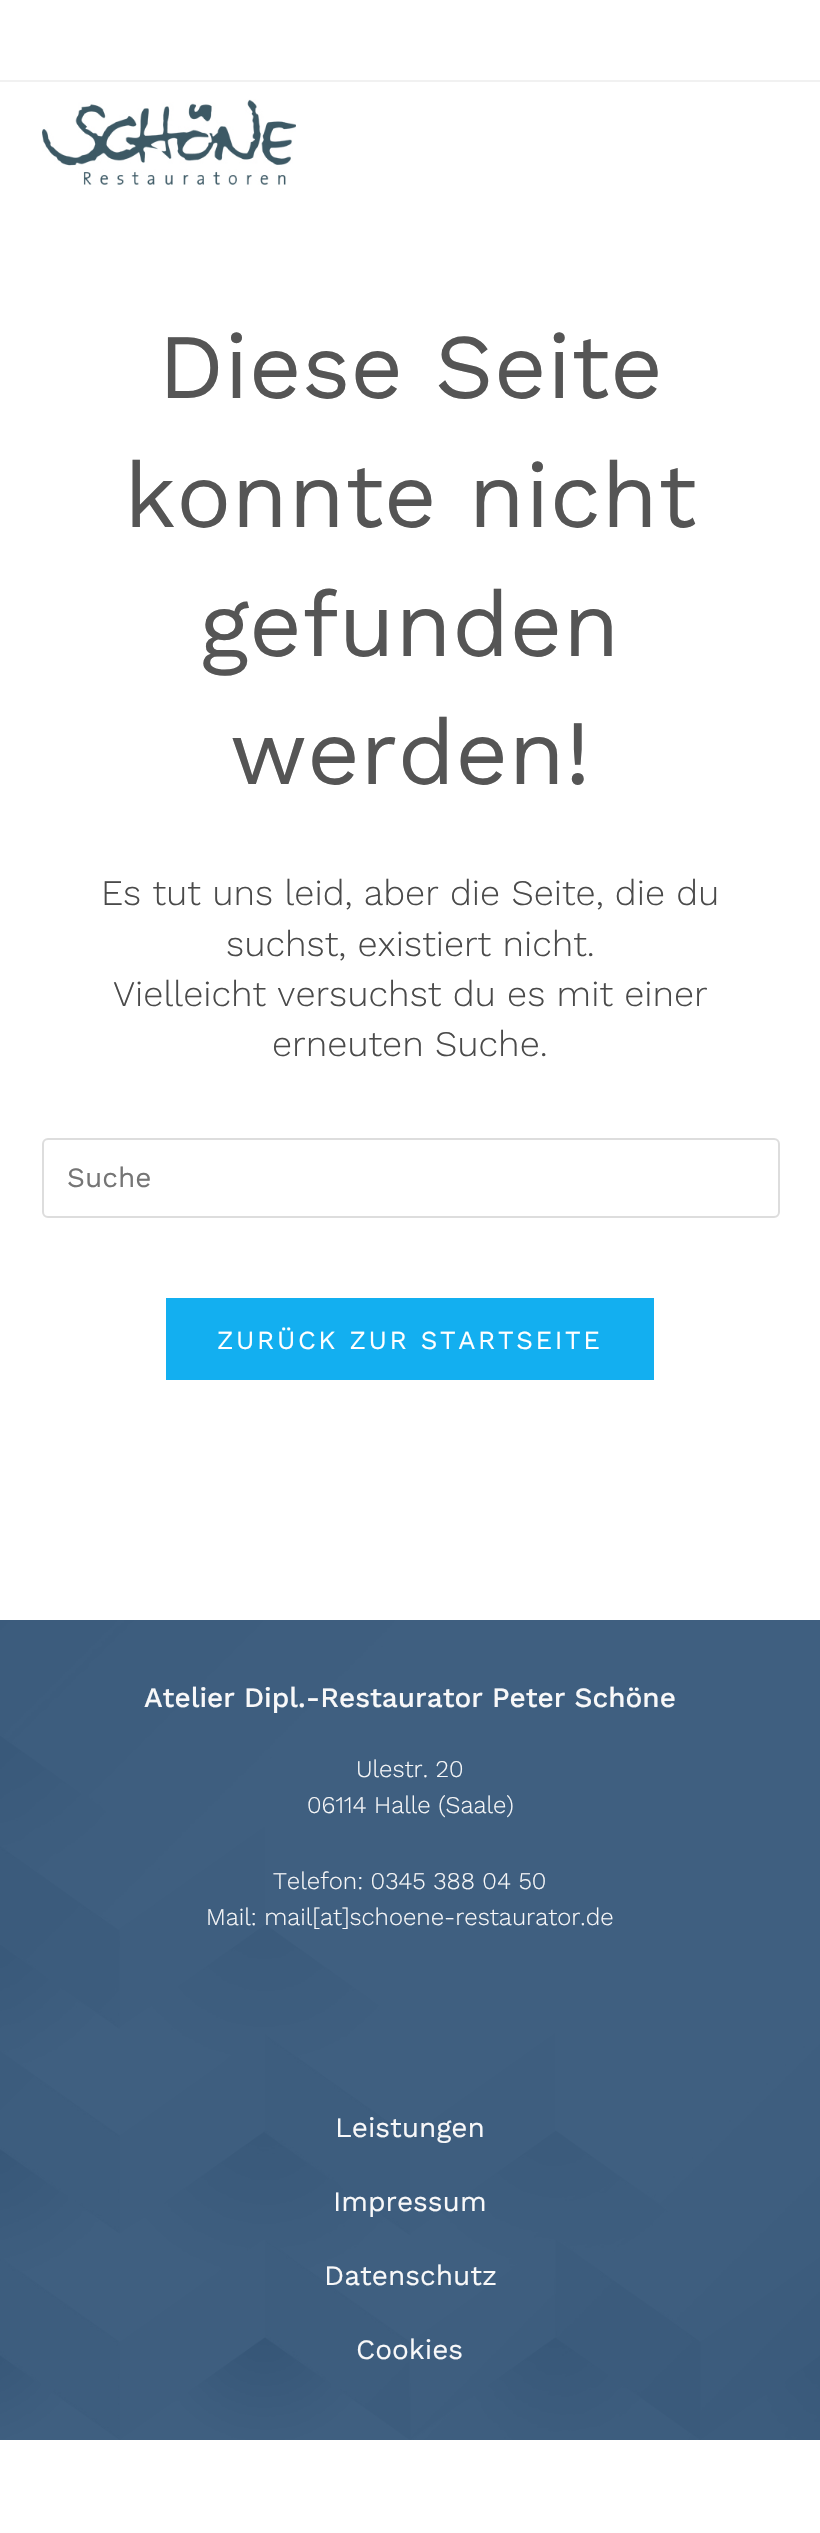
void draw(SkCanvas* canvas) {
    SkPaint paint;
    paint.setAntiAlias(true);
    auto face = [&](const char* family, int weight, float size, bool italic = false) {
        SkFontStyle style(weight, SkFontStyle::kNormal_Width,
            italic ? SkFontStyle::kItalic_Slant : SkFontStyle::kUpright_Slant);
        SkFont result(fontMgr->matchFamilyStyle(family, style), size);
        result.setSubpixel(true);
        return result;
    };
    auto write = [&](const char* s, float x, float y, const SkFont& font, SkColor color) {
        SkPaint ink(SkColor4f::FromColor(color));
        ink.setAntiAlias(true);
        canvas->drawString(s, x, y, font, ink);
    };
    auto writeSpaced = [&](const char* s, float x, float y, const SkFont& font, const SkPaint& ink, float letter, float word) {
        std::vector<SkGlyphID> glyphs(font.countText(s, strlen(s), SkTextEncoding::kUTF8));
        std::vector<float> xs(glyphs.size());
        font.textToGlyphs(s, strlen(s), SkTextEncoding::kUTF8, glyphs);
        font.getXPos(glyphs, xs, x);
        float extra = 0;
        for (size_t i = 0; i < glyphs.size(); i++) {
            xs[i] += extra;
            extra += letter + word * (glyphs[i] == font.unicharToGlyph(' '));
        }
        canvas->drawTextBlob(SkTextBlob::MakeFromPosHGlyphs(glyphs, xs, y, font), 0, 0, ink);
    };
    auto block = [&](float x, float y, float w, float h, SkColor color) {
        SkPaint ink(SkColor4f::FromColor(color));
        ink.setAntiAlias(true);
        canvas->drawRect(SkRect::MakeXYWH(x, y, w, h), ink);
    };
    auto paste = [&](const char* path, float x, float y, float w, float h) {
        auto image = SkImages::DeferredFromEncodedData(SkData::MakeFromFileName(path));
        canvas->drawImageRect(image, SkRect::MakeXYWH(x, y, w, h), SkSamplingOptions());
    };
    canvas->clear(SK_ColorWHITE);
    block(0, 80, 820, 2, SkColorSetRGB(241, 241, 241));
    paste("pic1.png", 42, 99, 254, 86);
    auto kFont1 = face("Work Sans", 400, 92);
    write("Diese Seite", 158, 398, kFont1, SkColorSetRGB(85, 85, 85));
    write("konnte nicht", 124, 527, kFont1, SkColorSetRGB(85, 85, 85));
    write("gefunden", 200, 656, kFont1, SkColorSetRGB(85, 85, 85));
    write("werden!", 230, 784, kFont1, SkColorSetRGB(85, 85, 85));
    auto kFont2 = face("Work Sans", 300, 36);
    write("Es tut uns leid, aber die Seite, die du", 101, 905, kFont2, SkColorSetRGB(74, 74, 74));
    write("suchst, existiert nicht.", 226, 956, kFont2, SkColorSetRGB(74, 74, 74));
    write("Vielleicht versuchst du es mit einer", 113, 1006, kFont2, SkColorSetRGB(74, 74, 74));
    write("erneuten Suche.", 272, 1056, kFont2, SkColorSetRGB(74, 74, 74));
    paint.setStyle(SkPaint::kStroke_Style);
    paint.setStrokeWidth(2);
    paint.setColor(SkColorSetRGB(221, 221, 221));
    canvas->drawRoundRect(SkRect::MakeXYWH(43, 1139, 736, 78), 5, 5, paint);
    auto kFont3 = face("Work Sans", 400, 28);
    write("Suche", 67, 1187, kFont3, SkColorSetRGB(117, 117, 117));
    block(166, 1298, 488, 82, SkColorSetRGB(19, 175, 240));
    auto kFont4 = face("Work Sans", 400, 26);
    paint.setStyle(SkPaint::kFill_Style);
    paint.setColor(SK_ColorWHITE);
    writeSpaced("ZURÜCK ZUR STARTSEITE", 217, 1349, kFont4, paint, 2.6f, 0);
    block(0, 1620, 820, 820, SkColorSetRGB(29, 67, 105));
    paste("pic2.png", 0, 1620, 820, 820);
    auto kFont5 = face("Work Sans", 500, 28);
    write("Atelier Dipl.-Restaurator Peter Schöne", 144, 1707, kFont5, SkColorSetRGB(248, 248, 249));
    auto kFont6 = face("Work Sans", 300, 24);
    write("Ulestr. 20", 356, 1777, kFont6, SkColorSetRGB(248, 248, 249));
    write("06114 Halle (Saale)", 307, 1813, kFont6, SkColorSetRGB(248, 248, 249));
    write("Telefon: 0345 388 04 50", 273, 1889, kFont6, SkColorSetRGB(248, 248, 249));
    write("Mail: mail[at]schoene-restaurator.de", 206, 1925, kFont6, SkColorSetRGB(248, 248, 249));
    write("Leistungen", 335, 2137, kFont3, SkColorSetRGB(248, 248, 249));
    write("Impressum", 333, 2211, kFont3, SkColorSetRGB(248, 248, 249));
    write("Datenschutz", 324, 2285, kFont3, SkColorSetRGB(248, 248, 249));
    write("Cookies", 356, 2359, kFont3, SkColorSetRGB(248, 248, 249));
}
